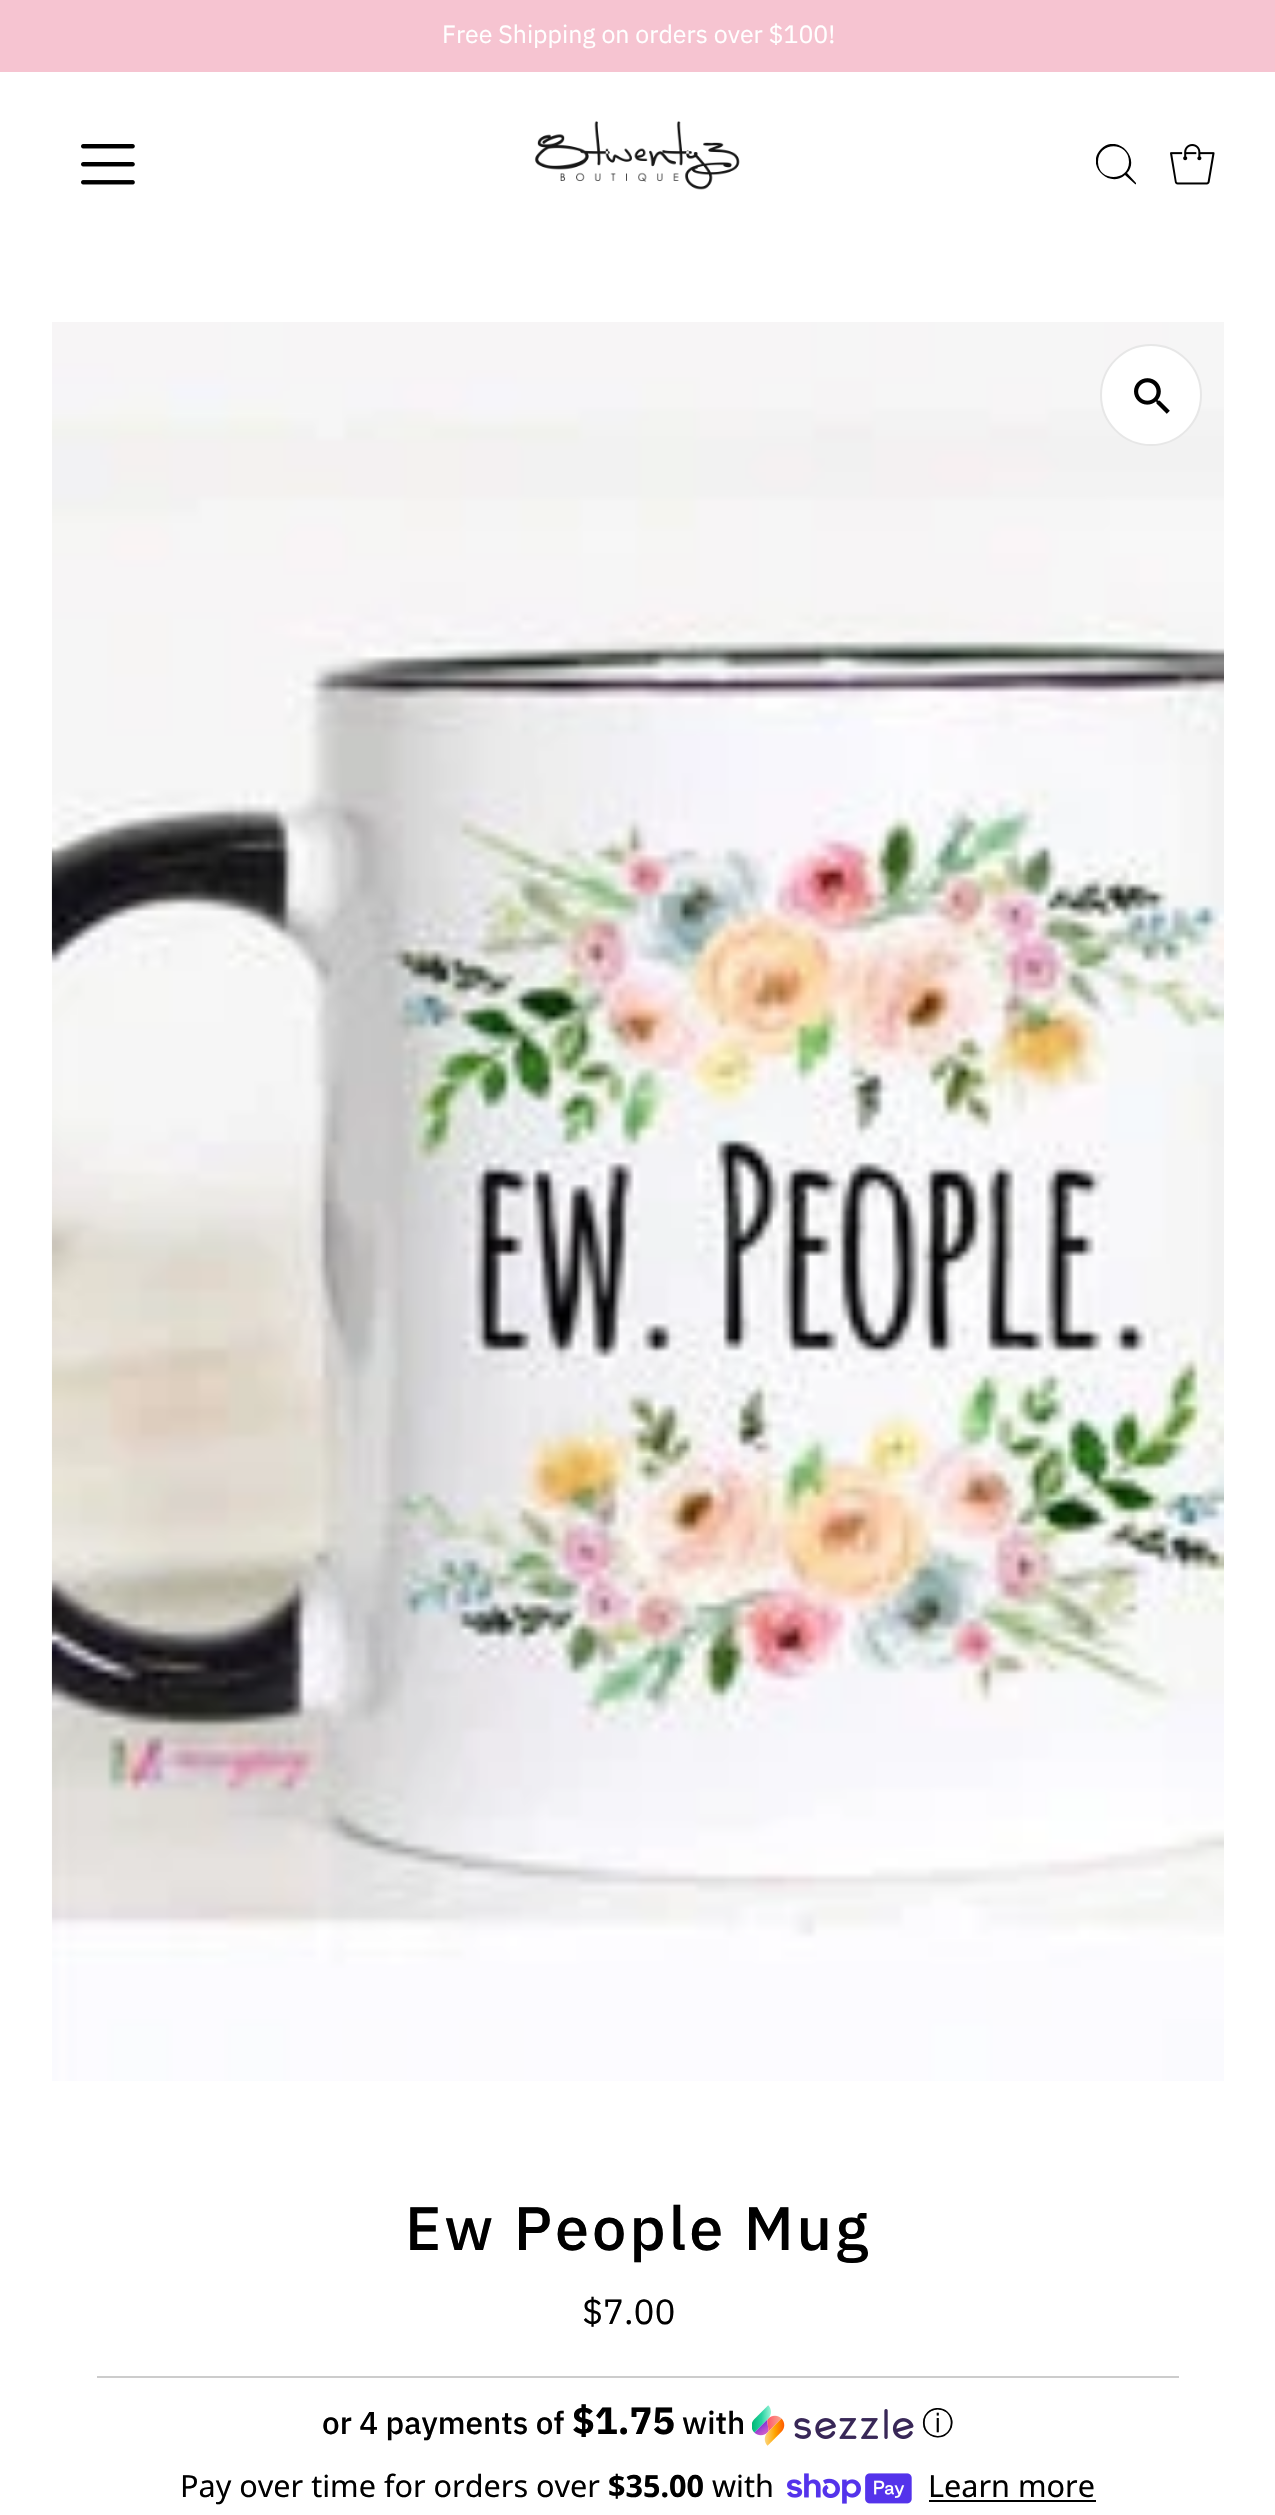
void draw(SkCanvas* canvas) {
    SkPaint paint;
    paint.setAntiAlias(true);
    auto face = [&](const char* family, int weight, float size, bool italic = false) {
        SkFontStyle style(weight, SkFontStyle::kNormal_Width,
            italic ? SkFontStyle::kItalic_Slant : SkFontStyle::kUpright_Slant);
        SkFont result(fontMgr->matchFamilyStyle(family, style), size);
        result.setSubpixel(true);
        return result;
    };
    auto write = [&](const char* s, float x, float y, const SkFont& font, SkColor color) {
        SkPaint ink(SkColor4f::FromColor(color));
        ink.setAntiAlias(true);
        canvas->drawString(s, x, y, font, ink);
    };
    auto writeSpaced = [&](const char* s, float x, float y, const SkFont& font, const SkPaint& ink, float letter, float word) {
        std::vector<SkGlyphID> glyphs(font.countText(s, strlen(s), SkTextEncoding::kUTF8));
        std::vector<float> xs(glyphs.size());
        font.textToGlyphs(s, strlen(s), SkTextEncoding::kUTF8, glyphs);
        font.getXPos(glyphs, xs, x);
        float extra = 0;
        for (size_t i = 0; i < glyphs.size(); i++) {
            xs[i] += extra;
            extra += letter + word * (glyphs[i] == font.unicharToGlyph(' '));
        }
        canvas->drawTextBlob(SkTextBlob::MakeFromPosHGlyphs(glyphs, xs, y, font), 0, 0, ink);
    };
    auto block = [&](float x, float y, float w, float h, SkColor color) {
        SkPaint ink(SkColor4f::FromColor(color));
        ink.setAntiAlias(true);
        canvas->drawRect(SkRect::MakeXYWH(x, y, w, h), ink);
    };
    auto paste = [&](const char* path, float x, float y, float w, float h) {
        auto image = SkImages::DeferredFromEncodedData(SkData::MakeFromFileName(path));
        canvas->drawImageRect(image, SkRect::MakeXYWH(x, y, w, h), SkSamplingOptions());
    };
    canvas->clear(SK_ColorWHITE);
    block(0, 0, 1275, 72, SkColorSetRGB(246, 196, 209));
    auto kFont1 = face("IBM Plex Sans", 400, 24.9f);
    write("Free Shipping on orders over $100!", 442, 43, kFont1, SK_ColorWHITE);
    paste("pic1.png", 81, 144, 54, 41);
    paste("pic2.png", 534, 121, 206, 69);
    canvas->save();
    canvas->clipRect(SkRect::MakeXYWH(1096, 144, 40, 41));
    paint.setColor(SK_ColorBLACK);
    canvas->drawPath(SkPathBuilder().moveTo(1136, 183).lineTo(1127, 173).cubicTo(1141, 158, 1117, 133, 1101, 149).cubicTo(1085, 165, 1109, 189, 1125, 175).lineTo(1135, 184).cubicTo(1136, 185, 1137, 183, 1136, 183).close().moveTo(1098, 162).cubicTo(1098, 141, 1129, 141, 1129, 162).cubicTo(1129, 182, 1098, 182, 1098, 162).close().detach(), paint);
    canvas->restore();
    paste("pic3.png", 1170, 144, 45, 41);
    paste("pic4.png", 51, 322, 1173, 1759);
    paint.setColor(SK_ColorWHITE);
    canvas->drawCircle(1151, 395, 50, paint);
    paint.setStyle(SkPaint::kStroke_Style);
    paint.setStrokeWidth(2);
    paint.setColor(SkColorSetRGB(231, 231, 231));
    canvas->drawCircle(1151, 395, 50, paint);
    paste("pic5.png", 1134, 378, 36, 36);
    auto kFont2 = face("IBM Plex Sans", 500, 61.25f);
    paint.setStyle(SkPaint::kFill_Style);
    paint.setColor(SK_ColorBLACK);
    writeSpaced("Ew People Mug", 405, 2250, kFont2, paint, 3, 0);
    block(97, 2376, 1082, 2, SkColorSetRGB(204, 204, 204));
    auto kFont3 = face("IBM Plex Sans", 400, 35);
    write("$7.00", 582, 2324, kFont3, SK_ColorBLACK);
    auto kFont4 = face("IBM Plex Sans", 500, 31.5f);
    write("or 4 payments of", 322, 2434, kFont4, SK_ColorBLACK);
    auto kFont5 = face("IBM Plex Sans", 700, 38);
    write("$1.75", 572, 2434, kFont5, SK_ColorBLACK);
    write("with", 682, 2434, kFont4, SK_ColorBLACK);
    paste("pic6.png", 752, 2405, 162, 41);
    auto kFont6 = face("WenQuanYi Zen Hei", 500, 31.5f);
    write("ⓘ", 922, 2434, kFont6, SK_ColorBLACK);
    auto kFont7 = face("Noto Sans", 400, 30.6f);
    write("Pay over time for orders over", 180, 2497, kFont7, SK_ColorBLACK);
    auto kFont8 = face("Noto Sans", 700, 30.6f);
    write("$35.00", 608, 2497, kFont8, SK_ColorBLACK);
    write("with", 712, 2497, kFont7, SK_ColorBLACK);
    paste("pic7.png", 787, 2473, 125, 31);
    write("Learn more", 928, 2497, kFont7, SK_ColorBLACK);
    block(929, 2500, 167, 2, SK_ColorBLACK);
}
